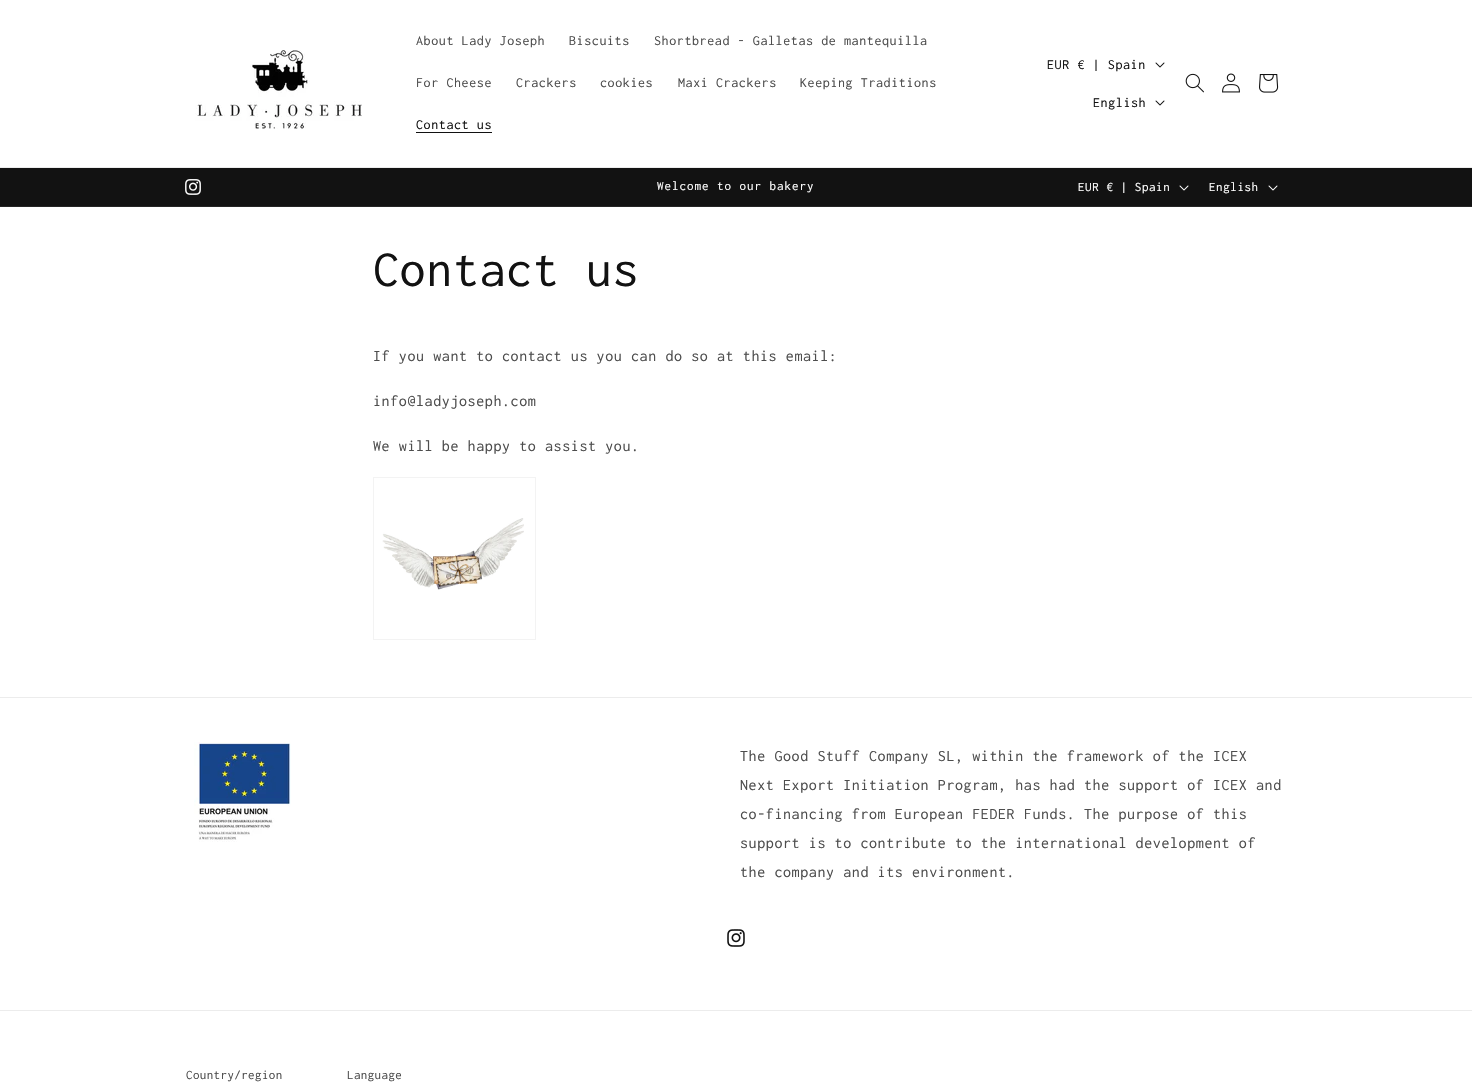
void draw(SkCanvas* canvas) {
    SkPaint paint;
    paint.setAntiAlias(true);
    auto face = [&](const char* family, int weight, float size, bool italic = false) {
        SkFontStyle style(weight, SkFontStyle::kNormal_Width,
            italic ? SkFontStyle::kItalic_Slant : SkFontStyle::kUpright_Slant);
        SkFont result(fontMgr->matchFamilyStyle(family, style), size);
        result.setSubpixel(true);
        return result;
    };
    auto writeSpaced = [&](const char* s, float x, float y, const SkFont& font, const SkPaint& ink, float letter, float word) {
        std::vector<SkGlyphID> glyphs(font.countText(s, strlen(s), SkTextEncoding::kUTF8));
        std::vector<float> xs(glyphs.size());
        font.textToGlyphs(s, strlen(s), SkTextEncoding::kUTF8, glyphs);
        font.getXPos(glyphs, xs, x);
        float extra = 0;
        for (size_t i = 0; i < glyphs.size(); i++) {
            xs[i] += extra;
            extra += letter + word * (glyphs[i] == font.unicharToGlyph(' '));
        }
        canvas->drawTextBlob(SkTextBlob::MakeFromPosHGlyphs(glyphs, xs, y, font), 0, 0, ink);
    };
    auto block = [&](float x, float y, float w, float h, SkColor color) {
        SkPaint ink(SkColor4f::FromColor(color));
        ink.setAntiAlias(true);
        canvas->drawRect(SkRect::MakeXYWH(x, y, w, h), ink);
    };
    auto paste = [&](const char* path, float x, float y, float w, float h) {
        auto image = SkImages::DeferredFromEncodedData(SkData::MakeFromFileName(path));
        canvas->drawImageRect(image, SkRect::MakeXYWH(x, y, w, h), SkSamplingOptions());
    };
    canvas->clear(SK_ColorWHITE);
    block(0, 167, 1472, 1, SkColorSetRGB(236, 236, 236));
    paste("pic1.png", 195, 50, 167, 79);
    auto kFont1 = face("Inconsolata", 400, 14);
    paint.setColor(SkColorSetRGB(77, 77, 77));
    writeSpaced("About Lady Joseph", 416, 45, kFont1, paint, 0.6f, 0);
    writeSpaced("Biscuits", 569, 45, kFont1, paint, 0.6f, 0);
    writeSpaced("Shortbread - Galletas de mantequilla", 654, 45, kFont1, paint, 0.6f, 0);
    writeSpaced("For Cheese", 416, 87, kFont1, paint, 0.6f, 0);
    writeSpaced("Crackers", 516, 87, kFont1, paint, 0.6f, 0);
    writeSpaced("cookies", 600, 87, kFont1, paint, 0.6f, 0);
    writeSpaced("Maxi Crackers", 678, 87, kFont1, paint, 0.6f, 0);
    writeSpaced("Keeping Traditions", 800, 87, kFont1, paint, 0.6f, 0);
    paint.setColor(SkColorSetRGB(18, 18, 18));
    writeSpaced("Contact us", 416, 129, kFont1, paint, 0.6f, 0);
    block(416, 132, 76, 1, SkColorSetRGB(18, 18, 18));
    writeSpaced("EUR € | Spain", 1047, 69, kFont1, paint, 0.6f, 0);
    paste("pic2.png", 1155, 62, 10, 6);
    writeSpaced("English", 1093, 107, kFont1, paint, 0.6f, 0);
    paste("pic2.png", 1155, 100, 10, 6);
    paste("pic3.png", 1185, 73, 19, 20);
    paste("pic4.png", 1222, 73, 18, 20);
    paste("pic5.png", 1259, 74, 20, 19);
    block(0, 168, 1472, 38, SkColorSetRGB(18, 18, 18));
    block(0, 206, 1472, 1, SkColorSetRGB(37, 37, 37));
    paste("pic6.png", 185, 179, 16, 16);
    auto kFont2 = face("Inconsolata", 400, 13);
    paint.setColor(SK_ColorWHITE);
    writeSpaced("Welcome to our bakery", 657, 190, kFont2, paint, 1, 0);
    writeSpaced("EUR € | Spain", 1078, 191, kFont2, paint, 0.6f, 0);
    paste("pic7.png", 1179, 185, 10, 6);
    writeSpaced("English", 1209, 191, kFont2, paint, 0.6f, 0);
    paste("pic7.png", 1268, 185, 10, 6);
    auto kFont3 = face("Inconsolata", 400, 52);
    paint.setColor(SkColorSetRGB(18, 18, 18));
    writeSpaced("Contact us", 373, 286, kFont3, paint, 0.6f, 0);
    auto kFont4 = face("Inconsolata", 400, 16);
    paint.setColor(SkColorSetRGB(77, 77, 77));
    writeSpaced("If you want to contact us you can do so at this email:", 373, 361, kFont4, paint, 0.6f, 0);
    writeSpaced("info@ladyjoseph.com", 373, 406, kFont4, paint, 0.6f, 0);
    writeSpaced("We will be happy to assist you.", 373, 451, kFont4, paint, 0.6f, 0);
    paint.setStyle(SkPaint::kStroke_Style);
    paint.setStrokeWidth(1);
    paint.setColor(SkColorSetRGB(243, 243, 243));
    canvas->drawRect(SkRect::MakeXYWH(373.5f, 477.5f, 162, 162), paint);
    paste("pic8.png", 382, 518, 142, 72);
    block(0, 697, 1472, 1, SkColorSetRGB(236, 236, 236));
    paste("pic9.png", 194, 742, 97, 100);
    paint.setStyle(SkPaint::kFill_Style);
    paint.setColor(SkColorSetRGB(77, 77, 77));
    writeSpaced("The Good Stuff Company SL, within the framework of the ICEX", 740, 761, kFont4, paint, 0.6f, 0);
    writeSpaced("Next Export Initiation Program, has had the support of ICEX and", 740, 790, kFont4, paint, 0.6f, 0);
    writeSpaced("co-financing from European FEDER Funds. The purpose of this", 740, 819, kFont4, paint, 0.6f, 0);
    writeSpaced("support is to contribute to the international development of", 740, 848, kFont4, paint, 0.6f, 0);
    writeSpaced("the company and its environment.", 740, 877, kFont4, paint, 0.6f, 0);
    paste("pic10.png", 727, 929, 18, 18);
    block(0, 1010, 1472, 1, SkColorSetRGB(236, 236, 236));
    writeSpaced("Country/region", 186, 1079, kFont2, paint, 0.4f, 0);
    writeSpaced("Language", 347, 1079, kFont2, paint, 0.4f, 0);
}
